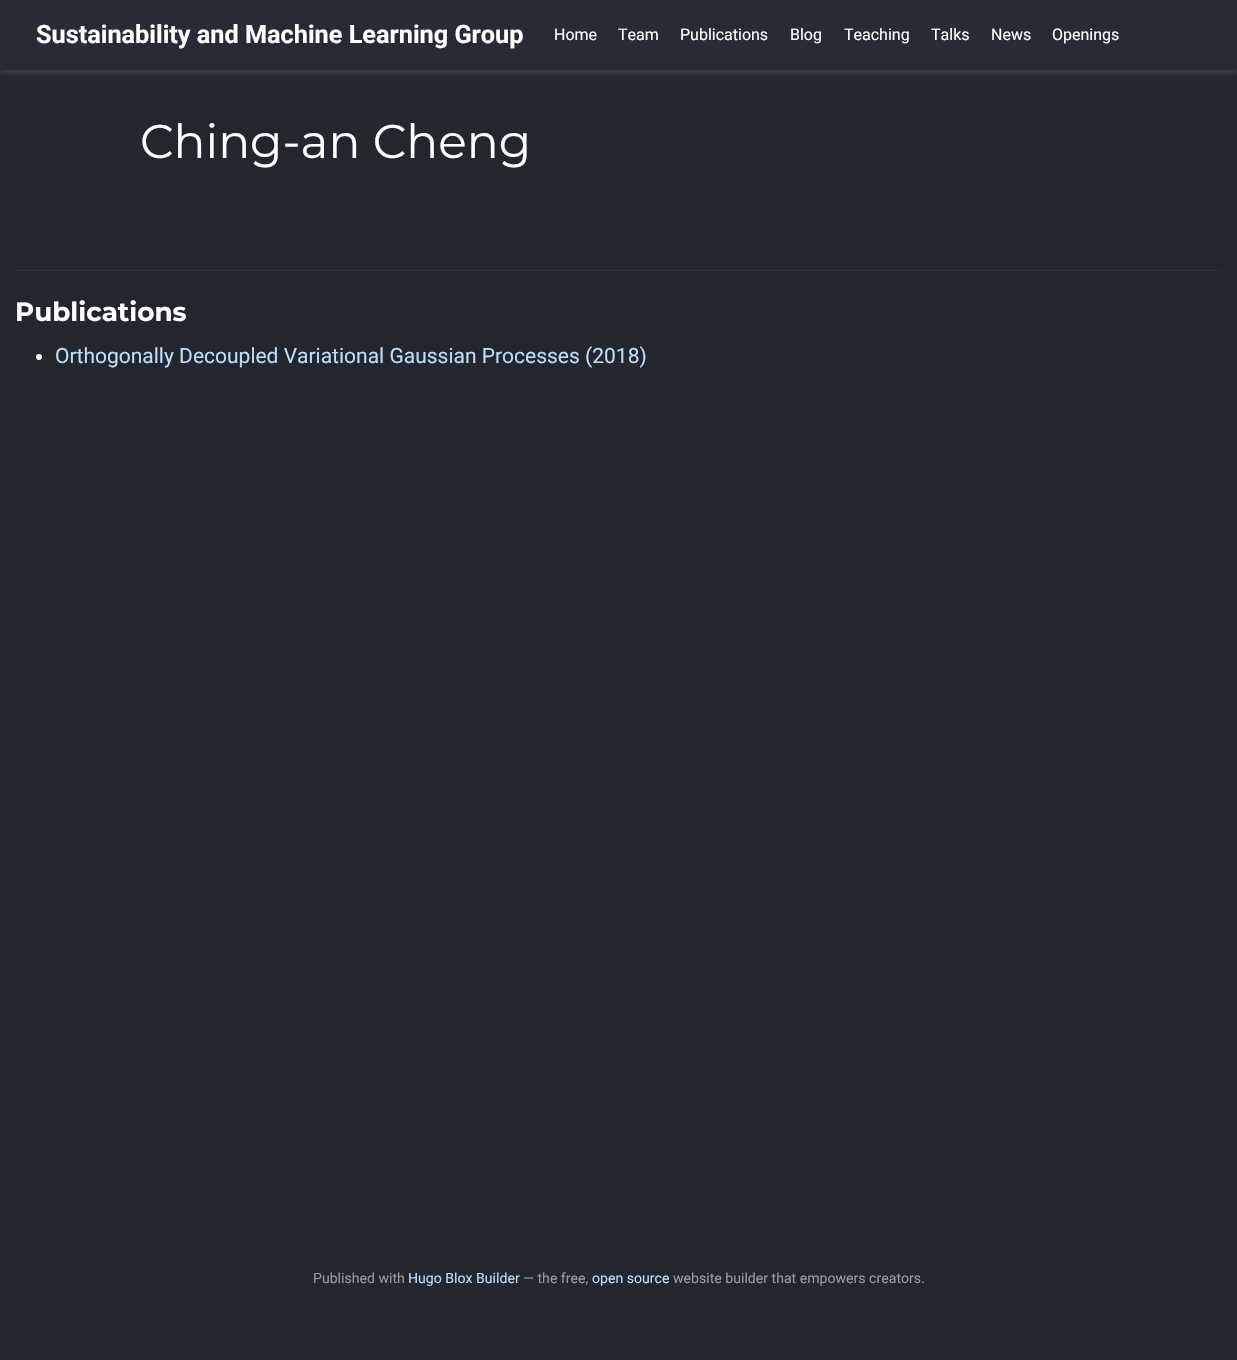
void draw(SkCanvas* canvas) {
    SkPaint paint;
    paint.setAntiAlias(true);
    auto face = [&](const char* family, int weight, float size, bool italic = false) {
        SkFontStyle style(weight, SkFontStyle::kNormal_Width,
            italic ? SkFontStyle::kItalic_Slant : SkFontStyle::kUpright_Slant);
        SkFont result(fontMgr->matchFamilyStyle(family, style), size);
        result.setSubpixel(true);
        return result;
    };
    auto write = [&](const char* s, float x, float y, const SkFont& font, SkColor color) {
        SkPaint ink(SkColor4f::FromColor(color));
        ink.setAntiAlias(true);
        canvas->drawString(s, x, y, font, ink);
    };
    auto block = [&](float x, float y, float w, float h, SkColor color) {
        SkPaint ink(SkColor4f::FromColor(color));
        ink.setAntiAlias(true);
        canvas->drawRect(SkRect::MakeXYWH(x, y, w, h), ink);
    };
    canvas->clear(SkColorSetRGB(35, 37, 47));
    paint.setColor(SkColorSetARGB(28, 255, 255, 255));
    paint.setMaskFilter(SkMaskFilter::MakeBlur(kNormal_SkBlurStyle, 2.5f));
    canvas->drawRect(SkRect::MakeXYWH(0, 3, 1237, 70), paint);
    paint.setMaskFilter(nullptr);
    block(0, 0, 1237, 70, SkColorSetRGB(40, 42, 54));
    auto kFont1 = face("Roboto", 700, 25.25f);
    write("Sustainability and Machine Learning Group", 36, 43, kFont1, SK_ColorWHITE);
    auto kFont2 = face("Roboto", 400, 16);
    write("Home", 554, 40, kFont2, SK_ColorWHITE);
    write("Team", 618, 40, kFont2, SK_ColorWHITE);
    write("Publications", 680, 40, kFont2, SK_ColorWHITE);
    write("Blog", 790, 40, kFont2, SK_ColorWHITE);
    write("Teaching", 844, 40, kFont2, SK_ColorWHITE);
    write("Talks", 931, 40, kFont2, SK_ColorWHITE);
    write("News", 991, 40, kFont2, SK_ColorWHITE);
    write("Openings", 1052, 40, kFont2, SK_ColorWHITE);
    auto kFont3 = face("Montserrat", 400, 47.25f);
    write("Ching-an Cheng", 140, 158, kFont3, SK_ColorWHITE);
    block(15, 270, 1207, 1, SkColorSetRGB(46, 48, 57));
    auto kFont4 = face("Montserrat", 700, 26.25f);
    write("Publications", 15, 321, kFont4, SK_ColorWHITE);
    paint.setColor(SkColorSetRGB(248, 248, 242));
    canvas->drawCircle(39, 357, 3, paint);
    auto kFont5 = face("Roboto", 400, 21);
    write("Orthogonally Decoupled Variational Gaussian Processes (2018)", 55, 363, kFont5, SkColorSetRGB(187, 222, 251));
    auto kFont6 = face("Roboto", 400, 14.1f);
    write("Published with", 313, 1283, kFont6, SkColorSetRGB(154, 155, 159));
    write("Hugo Blox Builder", 408, 1283, kFont6, SkColorSetRGB(187, 222, 251));
    write("— the free,", 523, 1283, kFont6, SkColorSetRGB(154, 155, 159));
    write("open source", 592, 1283, kFont6, SkColorSetRGB(187, 222, 251));
    write("website builder that empowers creators.", 673, 1283, kFont6, SkColorSetRGB(154, 155, 159));
}
